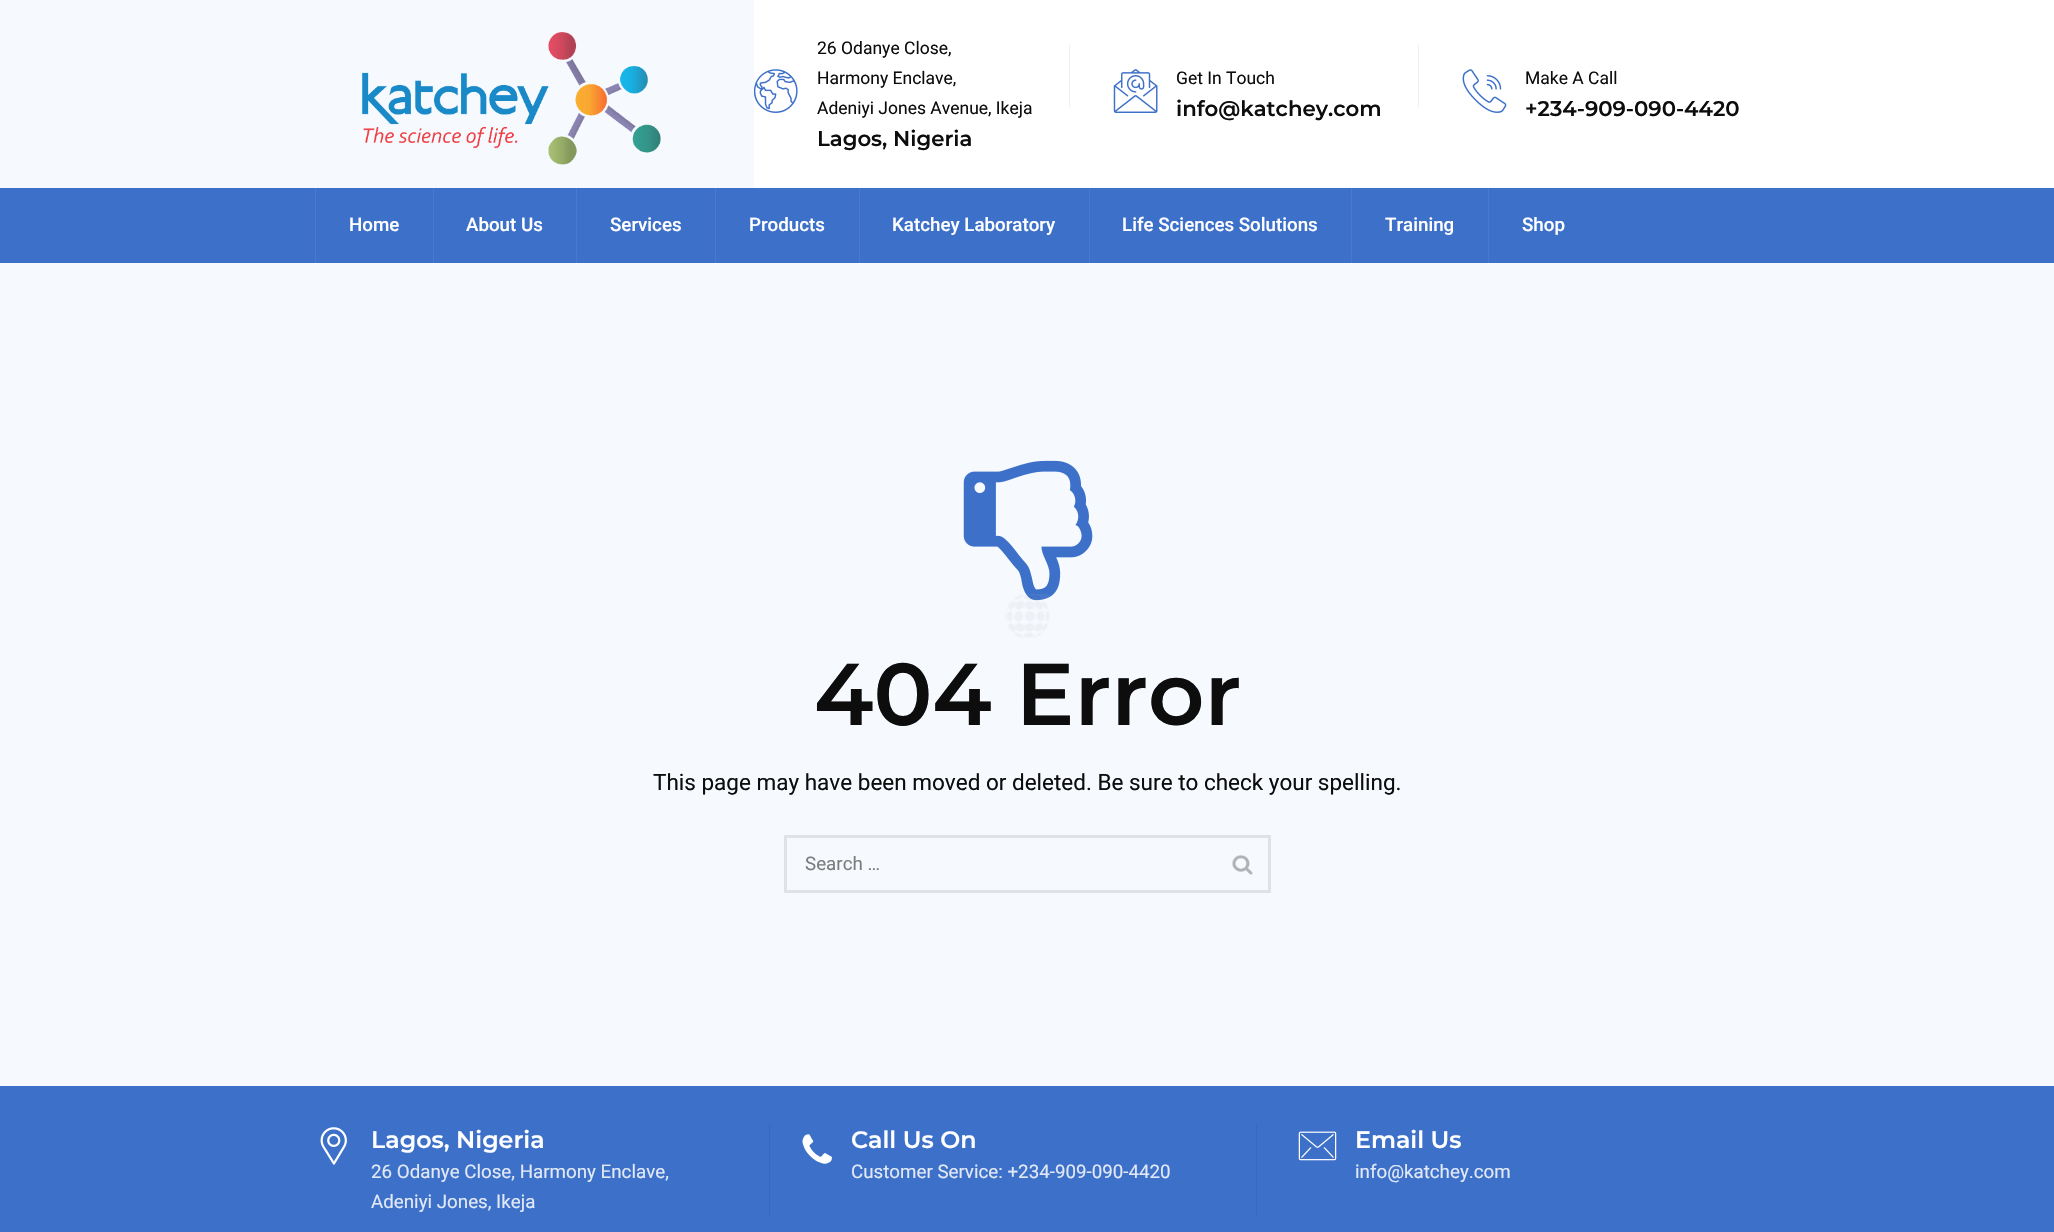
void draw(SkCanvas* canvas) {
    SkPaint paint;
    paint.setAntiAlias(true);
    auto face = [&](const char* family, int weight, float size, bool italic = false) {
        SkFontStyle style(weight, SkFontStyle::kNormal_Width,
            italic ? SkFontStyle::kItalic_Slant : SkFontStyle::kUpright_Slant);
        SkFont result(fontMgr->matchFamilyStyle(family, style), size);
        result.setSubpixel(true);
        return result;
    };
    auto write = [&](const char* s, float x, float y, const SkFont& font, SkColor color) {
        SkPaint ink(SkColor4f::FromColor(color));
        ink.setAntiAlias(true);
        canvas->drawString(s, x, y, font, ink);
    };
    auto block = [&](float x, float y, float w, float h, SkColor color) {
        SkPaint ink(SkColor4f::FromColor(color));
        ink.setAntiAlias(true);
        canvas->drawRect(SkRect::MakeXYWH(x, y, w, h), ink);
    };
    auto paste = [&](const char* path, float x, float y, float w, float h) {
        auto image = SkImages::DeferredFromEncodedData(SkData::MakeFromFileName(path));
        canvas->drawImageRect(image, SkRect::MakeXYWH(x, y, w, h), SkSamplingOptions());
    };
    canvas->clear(SK_ColorWHITE);
    block(0, 0, 754, 188, SkColorSetRGB(246, 250, 255));
    paste("pic1.png", 361, 32, 300, 133);
    paste("pic2.png", 754, 69, 44, 44);
    auto kFont1 = face("Roboto", 400, 17.5f);
    write("26 Odanye Close,", 817, 54, kFont1, SkColorSetRGB(13, 13, 13));
    write("Harmony Enclave,", 817, 84, kFont1, SkColorSetRGB(13, 13, 13));
    write("Adeniyi Jones Avenue, Ikeja", 817, 114, kFont1, SkColorSetRGB(13, 13, 13));
    auto kFont2 = face("Montserrat", 600, 21.25f);
    write("Lagos, Nigeria", 817, 146, kFont2, SkColorSetRGB(13, 13, 13));
    block(1069, 45, 1, 63, SkColorSetRGB(238, 240, 244));
    paste("pic3.png", 1113, 69, 45, 44);
    write("Get In Touch", 1176, 84, kFont1, SkColorSetRGB(13, 13, 13));
    write("info@katchey.com", 1176, 116, kFont2, SkColorSetRGB(13, 13, 13));
    block(1418, 45, 1, 63, SkColorSetRGB(238, 240, 244));
    paste("pic4.png", 1462, 69, 45, 44);
    write("Make A Call", 1525, 84, kFont1, SkColorSetRGB(13, 13, 13));
    write("+234-909-090-4420", 1525, 116, kFont2, SkColorSetRGB(13, 13, 13));
    block(0, 188, 2054, 75, SkColorSetRGB(61, 112, 201));
    block(315, 188, 1, 75, SkColorSetRGB(75, 122, 205));
    auto kFont3 = face("Roboto", 500, 18.75f);
    write("Home", 349, 231, kFont3, SK_ColorWHITE);
    block(433, 188, 1, 75, SkColorSetRGB(75, 122, 205));
    write("About Us", 466, 231, kFont3, SK_ColorWHITE);
    block(576, 188, 1, 75, SkColorSetRGB(75, 122, 205));
    write("Services", 610, 231, kFont3, SK_ColorWHITE);
    block(715, 188, 1, 75, SkColorSetRGB(75, 122, 205));
    write("Products", 749, 231, kFont3, SK_ColorWHITE);
    block(859, 188, 1, 75, SkColorSetRGB(75, 122, 205));
    write("Katchey Laboratory", 892, 231, kFont3, SK_ColorWHITE);
    block(1089, 188, 1, 75, SkColorSetRGB(75, 122, 205));
    write("Life Sciences Solutions", 1122, 231, kFont3, SK_ColorWHITE);
    block(1351, 188, 1, 75, SkColorSetRGB(75, 122, 205));
    write("Training", 1385, 231, kFont3, SK_ColorWHITE);
    block(1488, 188, 1, 75, SkColorSetRGB(75, 122, 205));
    write("Shop", 1522, 231, kFont3, SK_ColorWHITE);
    block(0, 263, 2054, 823, SkColorSetRGB(246, 250, 255));
    paste("pic5.png", 963, 460, 130, 141);
    auto kFont4 = face("Montserrat", 600, 87.5f);
    write("404 Error", 814, 725, kFont4, SkColorSetRGB(13, 13, 13));
    auto kFont5 = face("Roboto", 400, 22.5f);
    write("This page may have been moved or deleted. Be sure to check your spelling.", 653, 790, kFont5, SkColorSetRGB(13, 13, 13));
    paint.setStyle(SkPaint::kStroke_Style);
    paint.setStrokeWidth(3);
    paint.setColor(SkColorSetRGB(223, 227, 232));
    canvas->drawRect(SkRect::MakeXYWH(785.5f, 836.5f, 484, 55), paint);
    auto kFont6 = face("Roboto", 400, 18.75f);
    write("Search …", 805, 870, kFont6, SkColorSetRGB(124, 124, 124));
    paste("pic6.png", 1232, 855, 21, 20);
    block(0, 1086, 2054, 146, SkColorSetRGB(61, 112, 201));
    paste("pic7.png", 320, 1127, 27, 38);
    auto kFont7 = face("Montserrat", 600, 23.75f);
    write("Lagos, Nigeria", 371, 1148, kFont7, SK_ColorWHITE);
    write("26 Odanye Close, Harmony Enclave,", 371, 1178, kFont6, SkColorSetRGB(226, 233, 246));
    write("Adeniyi Jones, Ikeja", 371, 1208, kFont6, SkColorSetRGB(226, 233, 246));
    block(769, 1124, 1, 92, SkColorSetRGB(57, 105, 188));
    paste("pic8.png", 802, 1134, 30, 30);
    write("Call Us On", 851, 1148, kFont7, SK_ColorWHITE);
    write("Customer Service: +234-909-090-4420", 851, 1178, kFont6, SkColorSetRGB(226, 233, 246));
    block(1256, 1124, 1, 92, SkColorSetRGB(57, 105, 188));
    paste("pic9.png", 1298, 1131, 39, 30);
    write("Email Us", 1355, 1148, kFont7, SK_ColorWHITE);
    write("info@katchey.com", 1355, 1178, kFont6, SkColorSetRGB(226, 233, 246));
    paste("pic10.png", 1005, 594, 45, 44);
}
